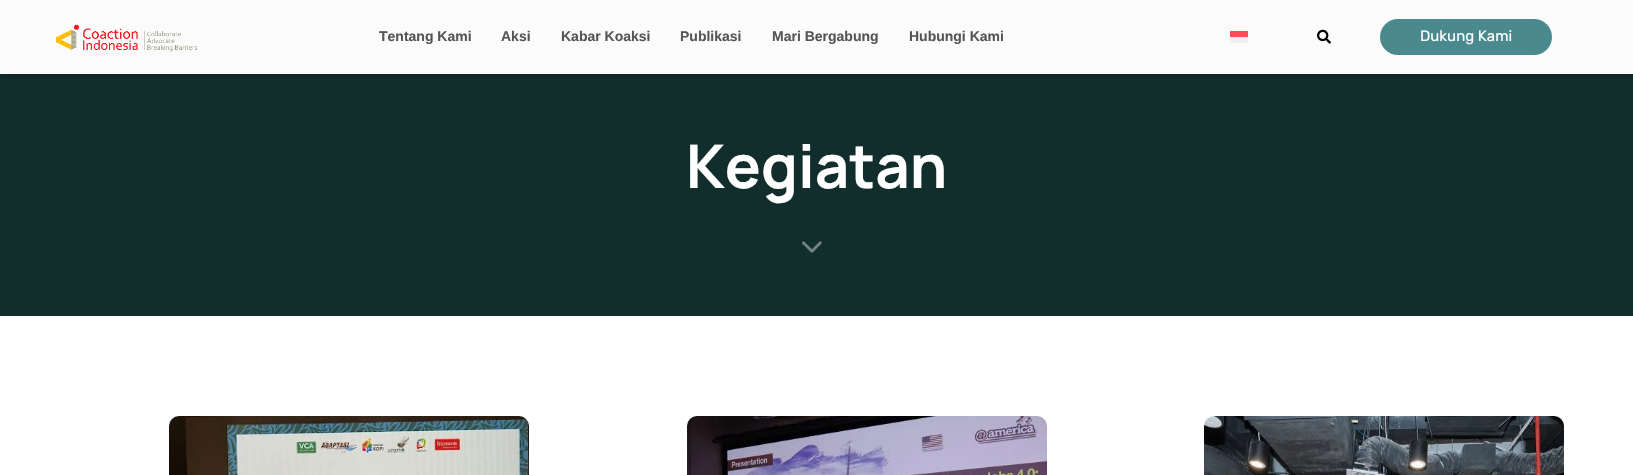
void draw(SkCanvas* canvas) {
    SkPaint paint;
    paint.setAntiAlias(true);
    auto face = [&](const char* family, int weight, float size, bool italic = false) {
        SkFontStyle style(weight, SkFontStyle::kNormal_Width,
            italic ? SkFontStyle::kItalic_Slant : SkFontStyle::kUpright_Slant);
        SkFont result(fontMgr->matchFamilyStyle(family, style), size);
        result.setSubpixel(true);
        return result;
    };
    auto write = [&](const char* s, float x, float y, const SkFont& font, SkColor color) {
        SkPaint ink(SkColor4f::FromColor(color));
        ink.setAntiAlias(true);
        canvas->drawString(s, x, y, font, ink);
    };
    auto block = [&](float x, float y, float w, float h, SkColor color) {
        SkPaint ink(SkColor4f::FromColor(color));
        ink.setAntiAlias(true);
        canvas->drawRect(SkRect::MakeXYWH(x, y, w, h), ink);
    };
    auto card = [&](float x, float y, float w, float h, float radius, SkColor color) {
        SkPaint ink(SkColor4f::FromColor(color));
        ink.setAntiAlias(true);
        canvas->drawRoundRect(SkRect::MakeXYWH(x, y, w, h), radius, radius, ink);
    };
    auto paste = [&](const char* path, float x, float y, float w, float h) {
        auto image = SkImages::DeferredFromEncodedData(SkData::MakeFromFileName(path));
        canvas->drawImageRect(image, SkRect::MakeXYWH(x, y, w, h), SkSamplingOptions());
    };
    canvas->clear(SK_ColorWHITE);
    block(0, 74, 1633, 242, SkColorSetRGB(17, 45, 44));
    paint.setColor(SkColorSetARGB(66, 0, 0, 0));
    paint.setMaskFilter(SkMaskFilter::MakeBlur(kNormal_SkBlurStyle, 5));
    canvas->drawRect(SkRect::MakeXYWH(2, -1, 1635, 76), paint);
    paint.setMaskFilter(nullptr);
    block(0, 0, 1633, 74, SkColorSetRGB(251, 251, 251));
    paste("pic1.png", 55, 24, 142, 28);
    auto kFont1 = face("Liberation Sans", 700, 14);
    write("Tentang Kami", 379, 41, kFont1, SkColorSetRGB(85, 85, 85));
    write("Aksi", 501, 41, kFont1, SkColorSetRGB(85, 85, 85));
    write("Kabar Koaksi", 561, 41, kFont1, SkColorSetRGB(85, 85, 85));
    write("Publikasi", 680, 41, kFont1, SkColorSetRGB(85, 85, 85));
    write("Mari Bergabung", 772, 41, kFont1, SkColorSetRGB(85, 85, 85));
    write("Hubungi Kami", 909, 41, kFont1, SkColorSetRGB(85, 85, 85));
    block(1230, 37, 18, 6, SkColorSetRGB(240, 240, 240));
    block(1230, 31, 18, 6, SkColorSetRGB(255, 75, 85));
    paste("pic2.png", 1317, 29, 14, 15);
    card(1380, 19, 172, 36, 18, SkColorSetRGB(74, 137, 142));
    auto kFont2 = face("Rubik", 400, 15);
    write("Dukung Kami", 1420, 41, kFont2, SK_ColorWHITE);
    auto kFont3 = face("Manrope", 700, 60);
    write("Kegiatan", 686, 188, kFont3, SK_ColorWHITE);
    paste("pic3.png", 802, 241, 20, 12);
    paste("pic4.png", 169, 416, 360, 59);
    paste("pic5.png", 687, 416, 360, 59);
    paste("pic6.png", 1204, 416, 360, 59);
}
